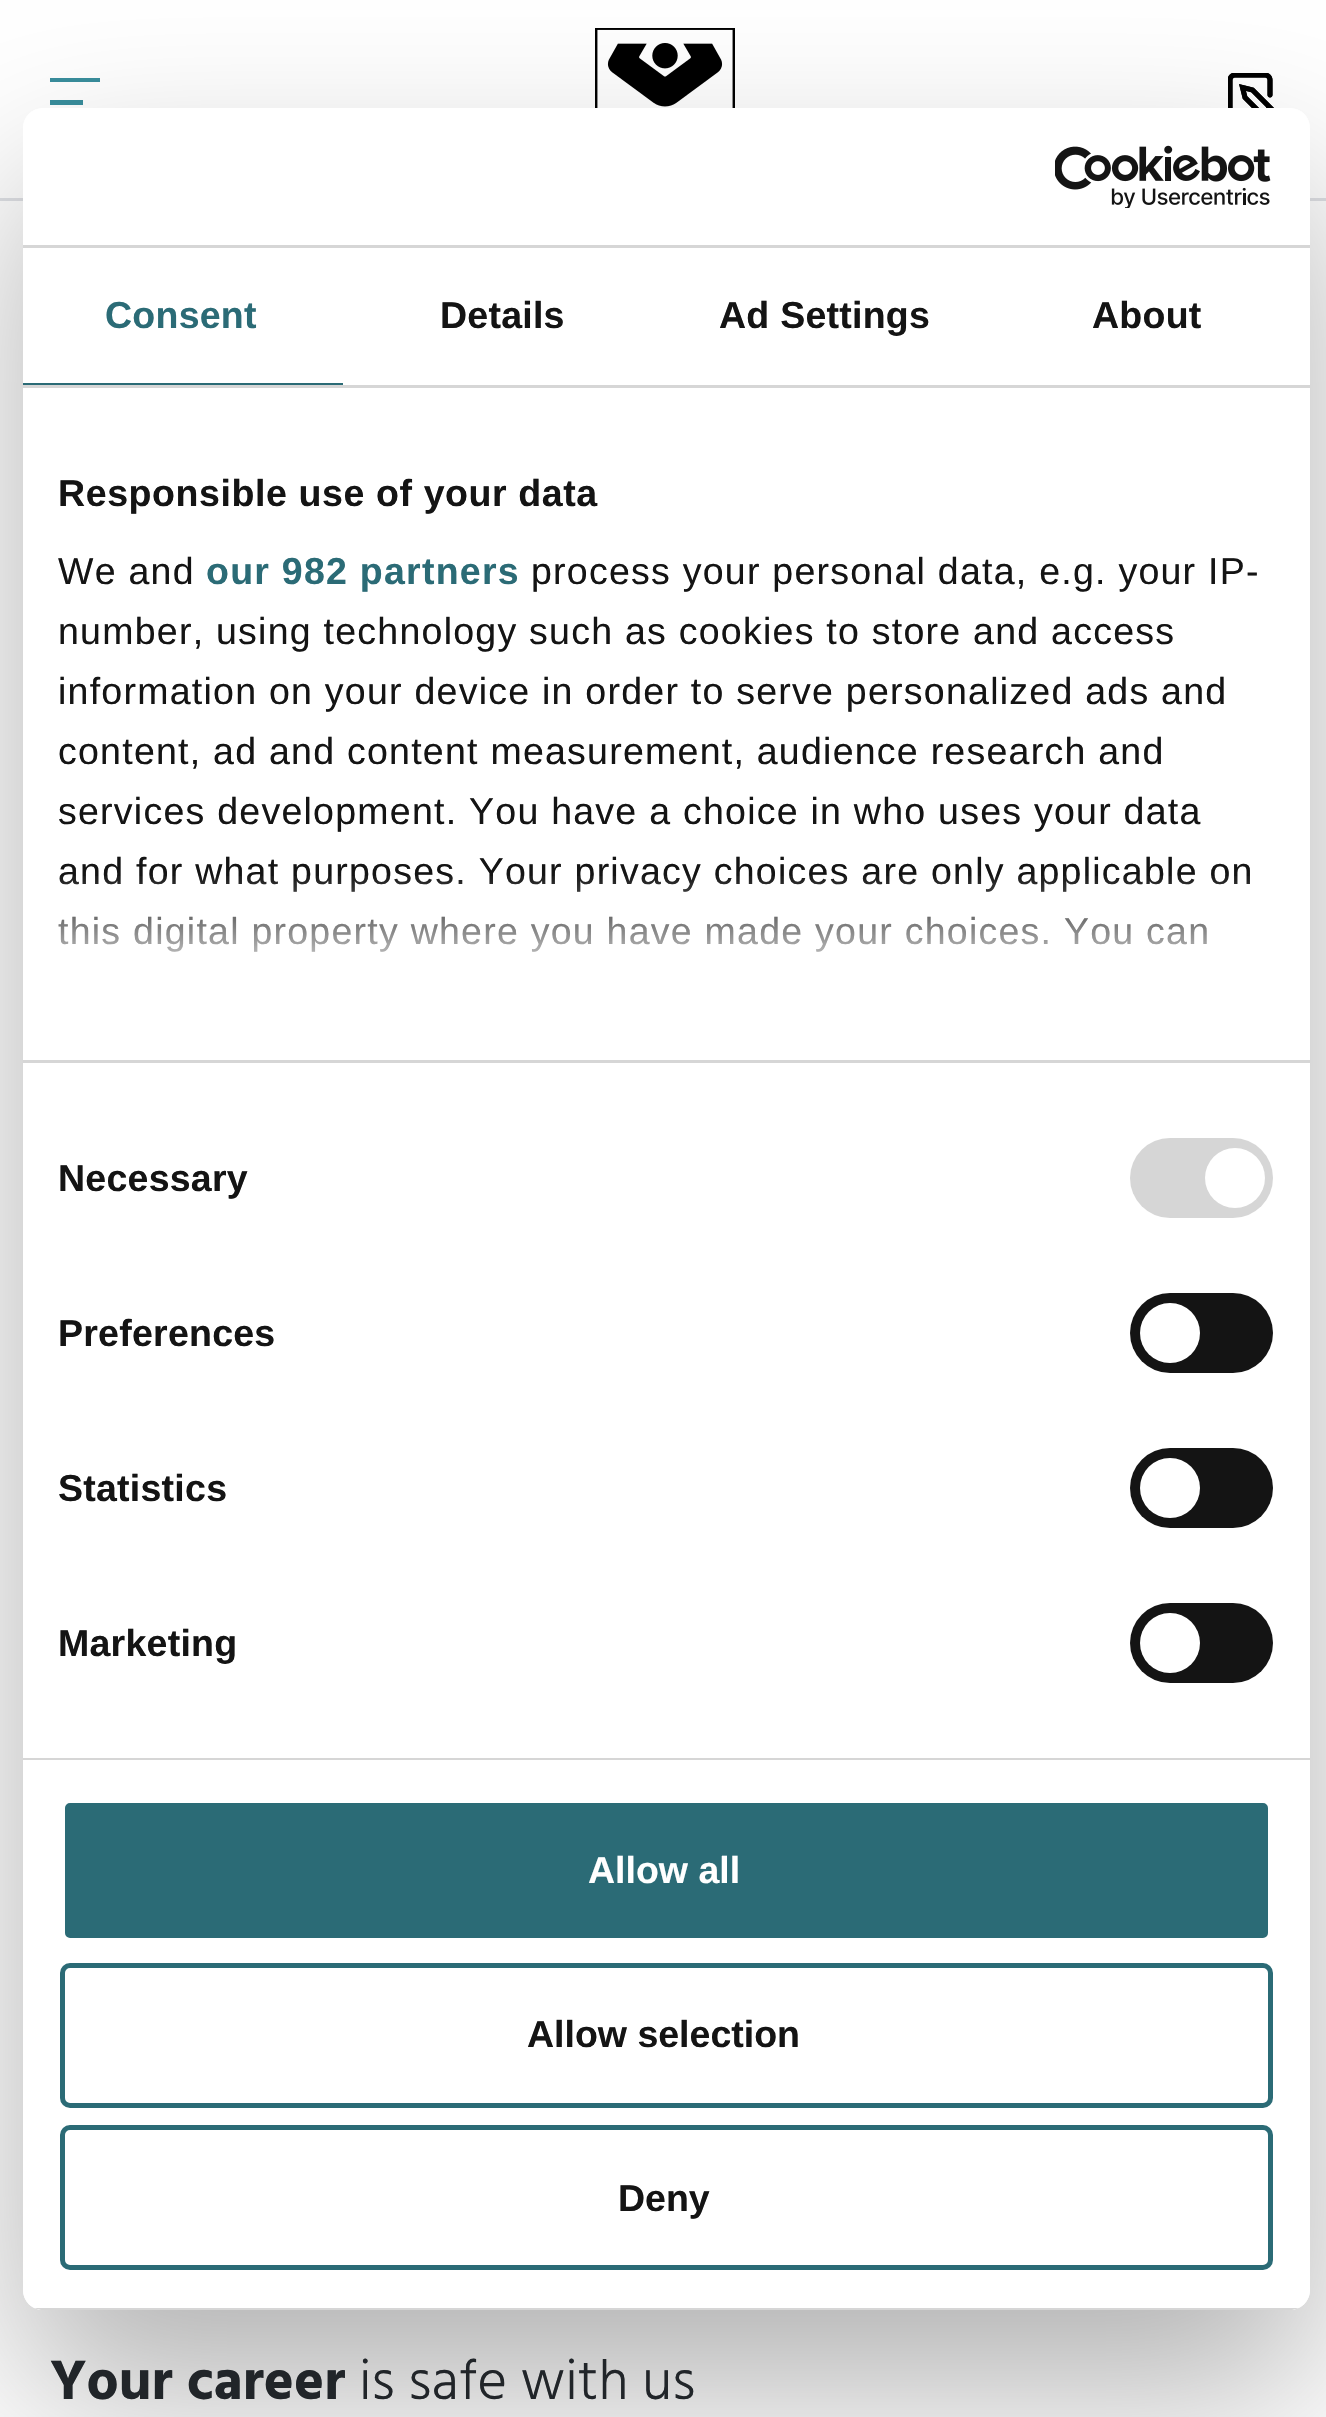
void draw(SkCanvas* canvas) {
    SkPaint paint;
    paint.setAntiAlias(true);
    auto face = [&](const char* family, int weight, float size, bool italic = false) {
        SkFontStyle style(weight, SkFontStyle::kNormal_Width,
            italic ? SkFontStyle::kItalic_Slant : SkFontStyle::kUpright_Slant);
        SkFont result(fontMgr->matchFamilyStyle(family, style), size);
        result.setSubpixel(true);
        return result;
    };
    auto write = [&](const char* s, float x, float y, const SkFont& font, SkColor color) {
        SkPaint ink(SkColor4f::FromColor(color));
        ink.setAntiAlias(true);
        canvas->drawString(s, x, y, font, ink);
    };
    auto writeSpaced = [&](const char* s, float x, float y, const SkFont& font, const SkPaint& ink, float letter, float word) {
        std::vector<SkGlyphID> glyphs(font.countText(s, strlen(s), SkTextEncoding::kUTF8));
        std::vector<float> xs(glyphs.size());
        font.textToGlyphs(s, strlen(s), SkTextEncoding::kUTF8, glyphs);
        font.getXPos(glyphs, xs, x);
        float extra = 0;
        for (size_t i = 0; i < glyphs.size(); i++) {
            xs[i] += extra;
            extra += letter + word * (glyphs[i] == font.unicharToGlyph(' '));
        }
        canvas->drawTextBlob(SkTextBlob::MakeFromPosHGlyphs(glyphs, xs, y, font), 0, 0, ink);
    };
    auto block = [&](float x, float y, float w, float h, SkColor color) {
        SkPaint ink(SkColor4f::FromColor(color));
        ink.setAntiAlias(true);
        canvas->drawRect(SkRect::MakeXYWH(x, y, w, h), ink);
    };
    auto card = [&](float x, float y, float w, float h, float radius, SkColor color) {
        SkPaint ink(SkColor4f::FromColor(color));
        ink.setAntiAlias(true);
        canvas->drawRoundRect(SkRect::MakeXYWH(x, y, w, h), radius, radius, ink);
    };
    auto paste = [&](const char* path, float x, float y, float w, float h) {
        auto image = SkImages::DeferredFromEncodedData(SkData::MakeFromFileName(path));
        canvas->drawImageRect(image, SkRect::MakeXYWH(x, y, w, h), SkSamplingOptions());
    };
    canvas->clear(SK_ColorWHITE);
    block(0, 198, 1326, 3, SkColorSetRGB(223, 225, 229));
    block(50, 78, 50, 4, SkColorSetRGB(57, 142, 157));
    block(50, 100, 33, 5, SkColorSetRGB(57, 142, 157));
    paste("pic2.png", 595, 28, 140, 80);
    paste("pic3.png", 1228, 73, 46, 35);
    canvas->save();
    canvas->clipPath(SkPathBuilder(SkPathFillType::kEvenOdd).moveTo(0, 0).lineTo(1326, 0).lineTo(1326, 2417).lineTo(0, 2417).close().moveTo(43, 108).lineTo(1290, 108).cubicTo(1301, 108, 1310, 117, 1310, 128).lineTo(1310, 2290).cubicTo(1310, 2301, 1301, 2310, 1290, 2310).lineTo(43, 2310).cubicTo(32, 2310, 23, 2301, 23, 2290).lineTo(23, 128).cubicTo(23, 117, 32, 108, 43, 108).close().detach(), true);
    paint.setColor(SkColorSetARGB(77, 0, 0, 0));
    paint.setMaskFilter(SkMaskFilter::MakeBlur(kNormal_SkBlurStyle, 85));
    canvas->drawRoundRect(SkRect::MakeXYWH(23, 188, 1287, 2202), 20, 20, paint);
    paint.setMaskFilter(nullptr);
    canvas->restore();
    card(23, 108, 1287, 2202, 20, SK_ColorWHITE);
    block(23, 245, 1287, 3, SkColorSetRGB(214, 214, 214));
    paste("pic1.png", 1055, 145, 216, 63);
    block(23, 385, 1287, 3, SkColorSetRGB(214, 214, 214));
    block(23, 383, 320, 2, SkColorSetRGB(43, 107, 118));
    auto kFont1 = face("Liberation Sans", 700, 37.5f);
    paint.setColor(SkColorSetRGB(43, 107, 118));
    writeSpaced("Consent", 105, 328, kFont1, paint, 0.25f, 0);
    paint.setColor(SkColorSetRGB(20, 20, 20));
    writeSpaced("Details", 440, 328, kFont1, paint, 0.25f, 0);
    writeSpaced("Ad Settings", 719, 328, kFont1, paint, 0.25f, 0);
    writeSpaced("About", 1092, 328, kFont1, paint, 0.25f, 0);
    block(23, 1060, 1287, 3, SkColorSetRGB(214, 214, 214));
    writeSpaced("Responsible use of your data", 58, 506, kFont1, paint, 0.6f, 0);
    auto kFont2 = face("Liberation Sans", 400, 37.5f);
    writeSpaced("We and", 58, 584, kFont2, paint, 1.25f, 0);
    paint.setColor(SkColorSetRGB(43, 107, 118));
    writeSpaced("our 982 partners", 206, 584, kFont1, paint, 1.25f, 0);
    paint.setColor(SkColorSetRGB(20, 20, 20));
    writeSpaced("process your personal data, e.g. your IP-", 531, 584, kFont2, paint, 1.25f, 0);
    writeSpaced("number, using technology such as cookies to store and access", 58, 644, kFont2, paint, 1.25f, 0);
    writeSpaced("information on your device in order to serve personalized ads and", 58, 704, kFont2, paint, 1.25f, 0);
    writeSpaced("content, ad and content measurement, audience research and", 58, 764, kFont2, paint, 1.25f, 0);
    writeSpaced("services development. You have a choice in who uses your data", 58, 824, kFont2, paint, 1.25f, 0);
    writeSpaced("and for what purposes. Your privacy choices are only applicable on", 58, 884, kFont2, paint, 1.25f, 0);
    writeSpaced("this digital property where you have made your choices. You can", 58, 944, kFont2, paint, 1.25f, 0);
    {
        const SkColor colors[] = {SK_ColorWHITE, SkColorSetARGB(204, 255, 255, 255), SkColorSetARGB(0, 255, 255, 255)};
        const float stops[] = {0, 0.5f, 1};
        const SkPoint ends[] = {{649, 1061}, {649, 873}};
        paint.setShader(SkGradientShader::MakeLinear(ends, colors, stops, 3, SkTileMode::kClamp));
        paint.setAlpha(255);
    }
    canvas->drawRect(SkRect::MakeXYWH(58, 876, 1192, 76), paint);
    block(23, 1758, 1287, 2, SkColorSetRGB(214, 214, 214));
    paint.setShader(nullptr);
    paint.setColor(SkColorSetRGB(20, 20, 20));
    writeSpaced("Necessary", 58, 1191, kFont1, paint, 0.25f, 0);
    card(1130, 1138, 143, 80, 40, SkColorSetRGB(214, 214, 214));
    paint.setColor(SK_ColorWHITE);
    canvas->drawCircle(1235, 1178, 30, paint);
    paint.setColor(SkColorSetRGB(20, 20, 20));
    writeSpaced("Preferences", 58, 1346, kFont1, paint, 0.25f, 0);
    card(1130, 1293, 143, 80, 40, SkColorSetRGB(20, 20, 20));
    paint.setColor(SK_ColorWHITE);
    canvas->drawCircle(1170, 1333, 30, paint);
    paint.setColor(SkColorSetRGB(20, 20, 20));
    writeSpaced("Statistics", 58, 1501, kFont1, paint, 0.25f, 0);
    card(1130, 1448, 143, 80, 40, SkColorSetRGB(20, 20, 20));
    paint.setColor(SK_ColorWHITE);
    canvas->drawCircle(1170, 1488, 30, paint);
    paint.setColor(SkColorSetRGB(20, 20, 20));
    writeSpaced("Marketing", 58, 1656, kFont1, paint, 0.25f, 0);
    card(1130, 1603, 143, 80, 40, SkColorSetRGB(20, 20, 20));
    paint.setColor(SK_ColorWHITE);
    canvas->drawCircle(1170, 1643, 30, paint);
    canvas->save();
    canvas->clipPath(SkPathBuilder().moveTo(43, 108).lineTo(1290, 108).cubicTo(1301, 108, 1310, 117, 1310, 128).lineTo(1310, 2290).cubicTo(1310, 2301, 1301, 2310, 1290, 2310).lineTo(43, 2310).cubicTo(32, 2310, 23, 2301, 23, 2290).lineTo(23, 128).cubicTo(23, 117, 32, 108, 43, 108).close().detach(), true);
    block(34, 2308, 1265, 2, SkColorSetRGB(214, 214, 214));
    canvas->restore();
    paint.setColor(SkColorSetRGB(43, 107, 118));
    canvas->drawRoundRect(SkRect::MakeXYWH(62.5f, 1800.5f, 1208, 140), 7.5f, 7.5f, paint);
    paint.setStyle(SkPaint::kStroke_Style);
    paint.setStrokeWidth(5);
    paint.setColor(SK_ColorWHITE);
    canvas->drawRoundRect(SkRect::MakeXYWH(62.5f, 1800.5f, 1208, 140), 7.5f, 7.5f, paint);
    write("Allow all", 588, 1883, kFont1, SK_ColorWHITE);
    paint.setColor(SkColorSetRGB(43, 107, 118));
    canvas->drawRoundRect(SkRect::MakeXYWH(62.5f, 1965.5f, 1208, 140), 7.5f, 7.5f, paint);
    write("Allow selection", 527, 2047, kFont1, SkColorSetRGB(20, 20, 20));
    canvas->drawRoundRect(SkRect::MakeXYWH(62.5f, 2127.5f, 1208, 140), 7.5f, 7.5f, paint);
    write("Deny", 618, 2211, kFont1, SkColorSetRGB(20, 20, 20));
    auto kFont3 = face("Hind", 700, 56.75f);
    write("Your career", 50, 2399, kFont3, SkColorSetRGB(33, 37, 41));
    auto kFont4 = face("Hind", 300, 56.75f);
    write("is safe with us", 359, 2399, kFont4, SkColorSetRGB(33, 37, 41));
}
